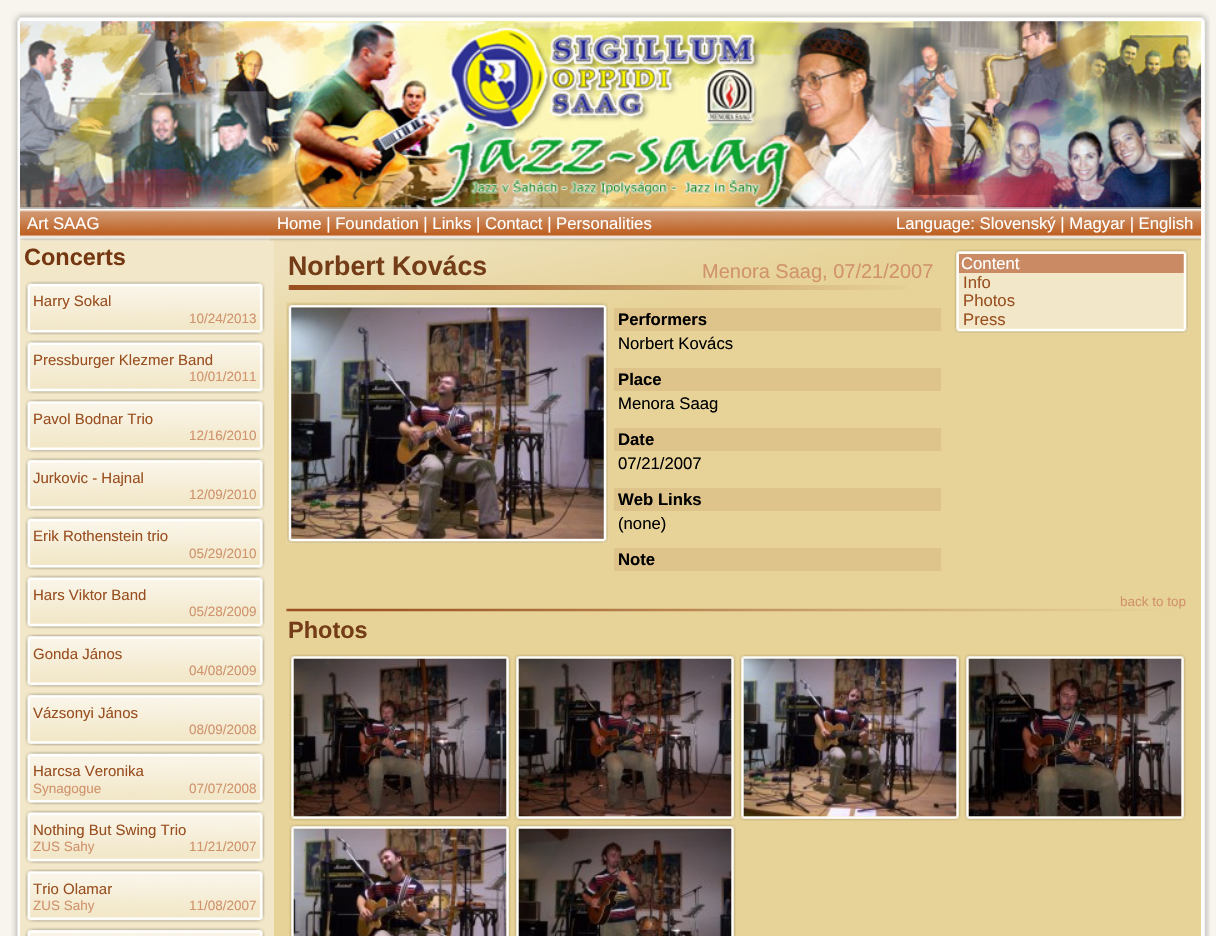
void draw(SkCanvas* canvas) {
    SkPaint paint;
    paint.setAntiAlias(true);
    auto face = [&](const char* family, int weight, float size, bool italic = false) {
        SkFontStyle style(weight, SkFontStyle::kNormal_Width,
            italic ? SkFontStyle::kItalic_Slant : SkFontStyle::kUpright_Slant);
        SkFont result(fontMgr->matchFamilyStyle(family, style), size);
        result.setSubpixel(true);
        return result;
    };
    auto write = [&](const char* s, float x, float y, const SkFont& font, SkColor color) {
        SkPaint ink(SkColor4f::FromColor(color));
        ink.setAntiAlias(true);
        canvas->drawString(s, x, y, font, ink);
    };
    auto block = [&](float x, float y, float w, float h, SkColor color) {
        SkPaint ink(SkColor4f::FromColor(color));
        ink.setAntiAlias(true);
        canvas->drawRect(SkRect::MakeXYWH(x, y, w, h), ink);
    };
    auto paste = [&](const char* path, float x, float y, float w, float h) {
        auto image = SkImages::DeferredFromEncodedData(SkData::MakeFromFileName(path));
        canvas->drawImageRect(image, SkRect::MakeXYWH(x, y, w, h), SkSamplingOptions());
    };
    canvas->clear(SkColorSetRGB(247, 245, 238));
    paste("pic1.png", 10, 10, 10, 12);
    paste("pic2.png", 20, 10, 1182, 12);
    paste("pic3.png", 1201, 10, 9, 12);
    paste("pic4.png", 10, 21, 10, 915);
    paste("pic5.png", 20, 21, 1182, 187);
    paste("pic6.png", 20, 207, 1182, 5);
    paste("pic7.png", 20, 211, 1182, 24);
    auto kFont1 = face("Liberation Sans", 400, 16.7f);
    write("Art SAAG", 27, 229, kFont1, SK_ColorWHITE);
    write("Home | Foundation | Links | Contact | Personalities", 277, 229, kFont1, SK_ColorWHITE);
    write("Language: Slovenský | Magyar | English", 896, 229, kFont1, SK_ColorWHITE);
    paste("pic8.png", 20, 235, 1182, 7);
    block(20, 241, 254, 695, SkColorSetRGB(242, 231, 200));
    auto kFont2 = face("Liberation Sans", 700, 23.5f);
    write("Concerts", 24, 265, kFont2, SkColorSetRGB(116, 55, 17));
    paste("pic9.png", 25, 281, 240, 54);
    auto kFont3 = face("Liberation Sans", 400, 15);
    write("Harry Sokal", 33, 306, kFont3, SkColorSetRGB(153, 79, 32));
    auto kFont4 = face("Liberation Sans", 400, 13.5f);
    write("10/24/2013", 189, 323, kFont4, SkColorSetRGB(208, 147, 108));
    paste("pic10.png", 25, 340, 240, 54);
    write("Pressburger Klezmer Band", 33, 365, kFont3, SkColorSetRGB(153, 79, 32));
    write("10/01/2011", 189, 381, kFont4, SkColorSetRGB(208, 147, 108));
    paste("pic11.png", 25, 399, 240, 54);
    write("Pavol Bodnar Trio", 33, 424, kFont3, SkColorSetRGB(153, 79, 32));
    write("12/16/2010", 189, 440, kFont4, SkColorSetRGB(208, 147, 108));
    paste("pic12.png", 25, 457, 240, 54);
    write("Jurkovic - Hajnal", 33, 483, kFont3, SkColorSetRGB(153, 79, 32));
    write("12/09/2010", 189, 499, kFont4, SkColorSetRGB(208, 147, 108));
    paste("pic13.png", 25, 516, 240, 54);
    write("Erik Rothenstein trio", 33, 541, kFont3, SkColorSetRGB(153, 79, 32));
    write("05/29/2010", 189, 558, kFont4, SkColorSetRGB(208, 147, 108));
    paste("pic14.png", 25, 575, 240, 54);
    write("Hars Viktor Band", 33, 600, kFont3, SkColorSetRGB(153, 79, 32));
    write("05/28/2009", 189, 616, kFont4, SkColorSetRGB(208, 147, 108));
    paste("pic11.png", 25, 634, 240, 54);
    write("Gonda János", 33, 659, kFont3, SkColorSetRGB(153, 79, 32));
    write("04/08/2009", 189, 675, kFont4, SkColorSetRGB(208, 147, 108));
    paste("pic12.png", 25, 692, 240, 54);
    write("Vázsonyi János", 33, 718, kFont3, SkColorSetRGB(153, 79, 32));
    write("08/09/2008", 189, 734, kFont4, SkColorSetRGB(208, 147, 108));
    paste("pic13.png", 25, 751, 240, 54);
    write("Harcsa Veronika", 33, 776, kFont3, SkColorSetRGB(153, 79, 32));
    write("Synagogue", 33, 793, kFont4, SkColorSetRGB(208, 147, 108));
    write("07/07/2008", 189, 793, kFont4, SkColorSetRGB(208, 147, 108));
    paste("pic10.png", 25, 810, 240, 54);
    write("Nothing But Swing Trio", 33, 835, kFont3, SkColorSetRGB(153, 79, 32));
    write("ZUS Sahy", 33, 851, kFont4, SkColorSetRGB(208, 147, 108));
    write("11/21/2007", 189, 851, kFont4, SkColorSetRGB(208, 147, 108));
    paste("pic11.png", 25, 869, 240, 54);
    write("Trio Olamar", 33, 894, kFont3, SkColorSetRGB(153, 79, 32));
    write("ZUS Sahy", 33, 910, kFont4, SkColorSetRGB(208, 147, 108));
    write("11/08/2007", 189, 910, kFont4, SkColorSetRGB(208, 147, 108));
    paste("pic15.png", 25, 927, 240, 9);
    block(274, 241, 927, 695, SkColorSetRGB(231, 211, 152));
    paste("pic16.png", 273, 241, 629, 158);
    auto kFont5 = face("Liberation Sans", 700, 26.75f);
    write("Norbert Kovács", 288, 275, kFont5, SkColorSetRGB(116, 61, 24));
    auto kFont6 = face("Liberation Sans", 400, 20);
    write("Menora Saag, 07/21/2007", 702, 278, kFont6, SkColorSetRGB(208, 147, 108));
    paste("pic17.png", 288, 285, 618, 5);
    block(954, 249, 235, 85, SkColorSetRGB(242, 231, 200));
    paste("pic18.png", 954, 249, 5, 5);
    paste("pic19.png", 958, 249, 226, 5);
    paste("pic20.png", 1183, 249, 6, 5);
    paste("pic21.png", 954, 253, 5, 76);
    block(959, 254, 225, 19, SkColorSetRGB(202, 139, 100));
    write("Content", 961, 269, kFont1, SK_ColorWHITE);
    write("Info", 963, 288, kFont1, SkColorSetRGB(153, 79, 32));
    write("Photos", 963, 306, kFont1, SkColorSetRGB(153, 79, 32));
    write("Press", 963, 325, kFont1, SkColorSetRGB(153, 79, 32));
    paste("pic22.png", 1183, 253, 6, 76);
    paste("pic23.png", 954, 328, 5, 6);
    paste("pic24.png", 958, 328, 226, 6);
    paste("pic25.png", 1184, 329, 5, 5);
    block(286, 303, 323, 241, SkColorSetRGB(242, 231, 200));
    paste("pic26.png", 286, 302, 6, 6);
    paste("pic27.png", 291, 302, 313, 6);
    paste("pic28.png", 603, 302, 6, 6);
    paste("pic29.png", 286, 307, 6, 232);
    paste("pic31.png", 603, 307, 6, 232);
    paste("pic32.png", 286, 539, 6, 5);
    paste("pic33.png", 291, 538, 313, 6);
    paste("pic30.png", 291, 307, 313, 232);
    paste("pic25.png", 604, 539, 5, 5);
    block(614, 308, 327, 23, SkColorSetRGB(222, 195, 138));
    auto kFont7 = face("Liberation Sans", 700, 16.7f);
    write("Performers", 618, 325, kFont7, SK_ColorBLACK);
    write("Norbert Kovács", 618, 349, kFont1, SK_ColorBLACK);
    block(614, 368, 327, 23, SkColorSetRGB(222, 195, 138));
    write("Place", 618, 385, kFont7, SK_ColorBLACK);
    write("Menora Saag", 618, 409, kFont1, SK_ColorBLACK);
    block(614, 428, 327, 23, SkColorSetRGB(222, 195, 138));
    write("Date", 618, 445, kFont7, SK_ColorBLACK);
    write("07/21/2007", 618, 469, kFont1, SK_ColorBLACK);
    block(614, 488, 327, 23, SkColorSetRGB(222, 195, 138));
    write("Web Links", 618, 505, kFont7, SK_ColorBLACK);
    write("(none)", 618, 529, kFont1, SK_ColorBLACK);
    block(614, 548, 327, 23, SkColorSetRGB(222, 195, 138));
    write("Note", 618, 565, kFont7, SK_ColorBLACK);
    write("back to top", 1120, 606, kFont4, SkColorSetRGB(208, 147, 108));
    paste("pic34.png", 286, 608, 894, 4);
    write("Photos", 288, 638, kFont2, SkColorSetRGB(116, 61, 24));
    paste("pic18.png", 289, 654, 5, 5);
    paste("pic35.png", 293, 654, 214, 5);
    paste("pic36.png", 506, 654, 5, 5);
    paste("pic37.png", 289, 658, 5, 159);
    paste("pic39.png", 506, 658, 5, 159);
    paste("pic40.png", 289, 816, 5, 5);
    paste("pic41.png", 293, 816, 214, 5);
    paste("pic42.png", 506, 816, 5, 5);
    paste("pic38.png", 293, 658, 214, 159);
    paste("pic43.png", 514, 654, 5, 5);
    paste("pic35.png", 518, 654, 214, 5);
    paste("pic36.png", 731, 654, 5, 5);
    paste("pic44.png", 514, 658, 5, 159);
    paste("pic39.png", 731, 658, 5, 159);
    paste("pic46.png", 514, 816, 5, 5);
    paste("pic41.png", 518, 816, 214, 5);
    paste("pic42.png", 731, 816, 5, 5);
    paste("pic45.png", 518, 658, 214, 159);
    paste("pic18.png", 739, 654, 5, 5);
    paste("pic35.png", 743, 654, 214, 5);
    paste("pic36.png", 956, 654, 5, 5);
    paste("pic37.png", 739, 658, 5, 159);
    paste("pic39.png", 956, 658, 5, 159);
    paste("pic40.png", 739, 816, 5, 5);
    paste("pic41.png", 743, 816, 214, 5);
    paste("pic42.png", 956, 816, 5, 5);
    paste("pic47.png", 743, 658, 214, 159);
    paste("pic18.png", 964, 654, 5, 5);
    paste("pic35.png", 968, 654, 214, 5);
    paste("pic36.png", 1181, 654, 5, 5);
    paste("pic37.png", 964, 658, 5, 159);
    paste("pic39.png", 1181, 658, 5, 159);
    paste("pic40.png", 964, 816, 5, 5);
    paste("pic41.png", 968, 816, 214, 5);
    paste("pic42.png", 1181, 816, 5, 5);
    paste("pic48.png", 968, 658, 214, 159);
    paste("pic18.png", 289, 824, 5, 5);
    paste("pic35.png", 293, 824, 214, 5);
    paste("pic36.png", 506, 824, 5, 5);
    paste("pic49.png", 289, 828, 5, 108);
    paste("pic51.png", 506, 828, 5, 108);
    paste("pic50.png", 293, 828, 214, 108);
    paste("pic43.png", 514, 824, 5, 5);
    paste("pic35.png", 518, 824, 214, 5);
    paste("pic36.png", 731, 824, 5, 5);
    paste("pic52.png", 514, 828, 5, 108);
    paste("pic51.png", 731, 828, 5, 108);
    paste("pic53.png", 518, 828, 214, 108);
    paste("pic54.png", 1201, 21, 9, 915);
}
